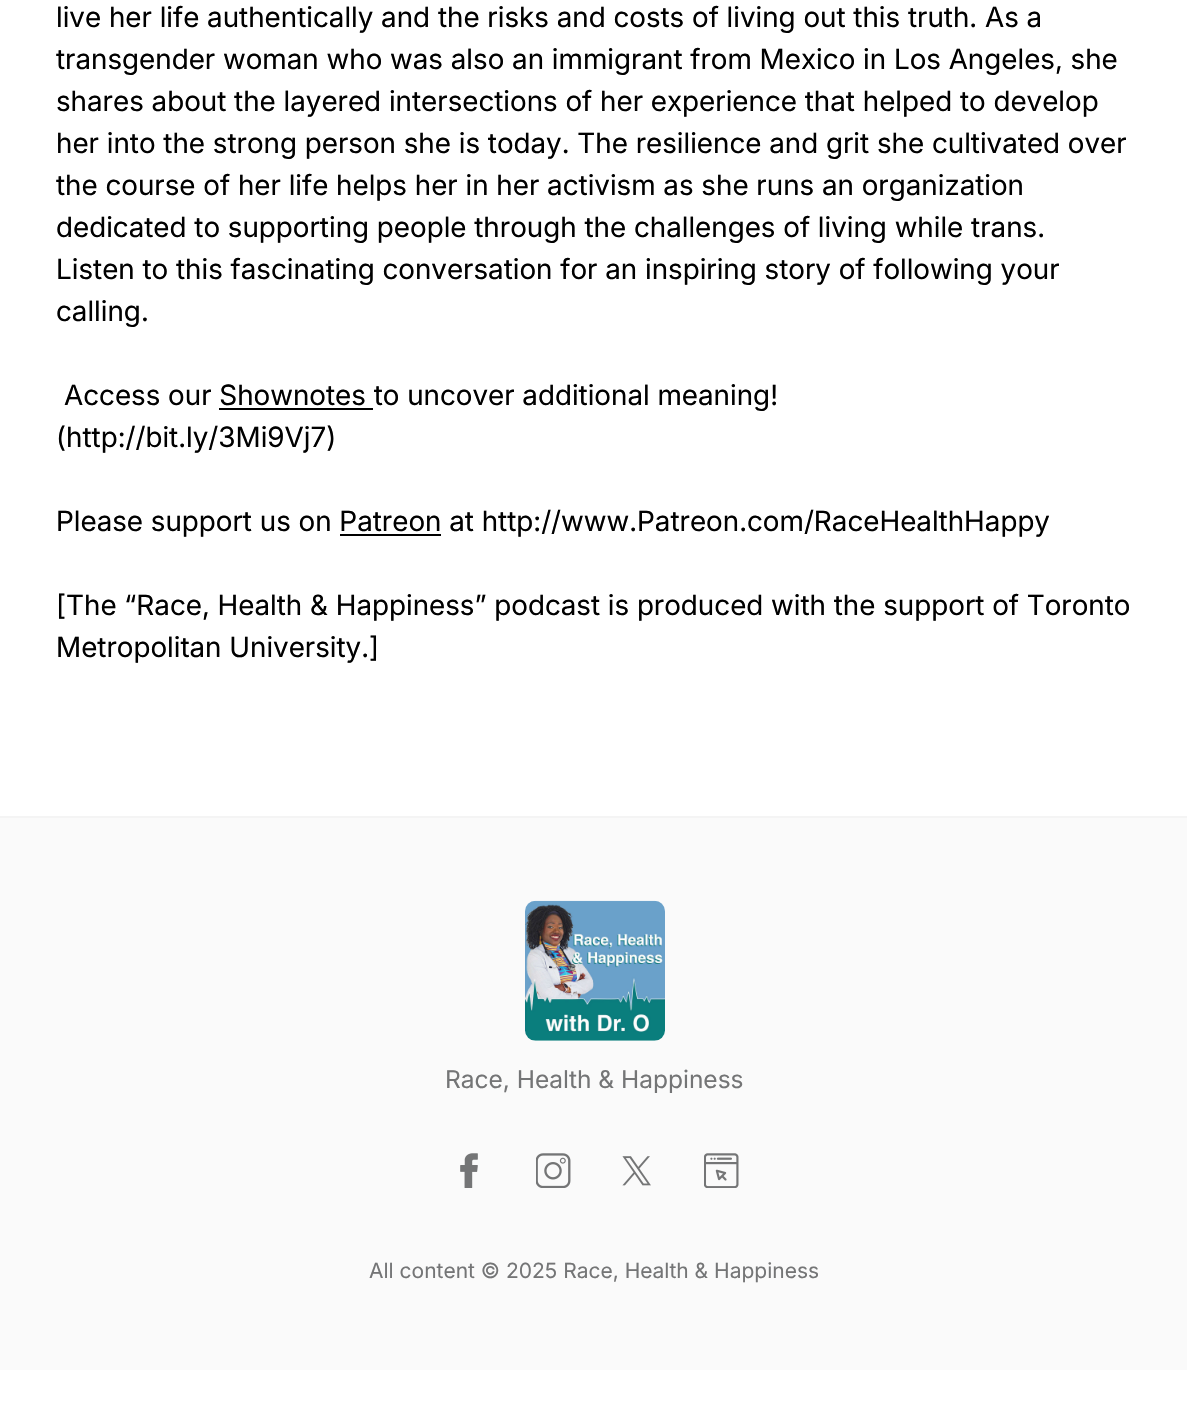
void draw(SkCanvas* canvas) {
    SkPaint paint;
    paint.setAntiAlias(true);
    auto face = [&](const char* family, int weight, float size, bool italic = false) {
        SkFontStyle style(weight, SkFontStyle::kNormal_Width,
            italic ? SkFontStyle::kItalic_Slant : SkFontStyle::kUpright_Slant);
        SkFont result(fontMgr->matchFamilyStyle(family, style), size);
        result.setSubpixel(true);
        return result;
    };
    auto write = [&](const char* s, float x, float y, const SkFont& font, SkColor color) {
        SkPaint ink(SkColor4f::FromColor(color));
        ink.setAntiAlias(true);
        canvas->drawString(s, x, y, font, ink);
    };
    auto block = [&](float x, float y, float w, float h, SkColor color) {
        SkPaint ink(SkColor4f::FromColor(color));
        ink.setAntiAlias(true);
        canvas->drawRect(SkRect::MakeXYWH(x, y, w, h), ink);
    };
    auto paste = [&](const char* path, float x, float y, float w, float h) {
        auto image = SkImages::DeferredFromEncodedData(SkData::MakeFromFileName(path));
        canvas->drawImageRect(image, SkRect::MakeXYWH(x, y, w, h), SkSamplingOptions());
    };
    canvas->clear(SK_ColorWHITE);
    auto kFont1 = face("Inter", 400, 28);
    write("live her life authentically and the risks and costs of living out this truth. As a", 56, 27, kFont1, SK_ColorBLACK);
    write("transgender woman who was also an immigrant from Mexico in Los Angeles, she", 56, 69, kFont1, SK_ColorBLACK);
    write("shares about the layered intersections of her experience that helped to develop", 56, 111, kFont1, SK_ColorBLACK);
    write("her into the strong person she is today. The resilience and grit she cultivated over", 56, 153, kFont1, SK_ColorBLACK);
    write("the course of her life helps her in her activism as she runs an organization", 56, 195, kFont1, SK_ColorBLACK);
    write("dedicated to supporting people through the challenges of living while trans.", 56, 237, kFont1, SK_ColorBLACK);
    write("Listen to this fascinating conversation for an inspiring story of following your", 56, 279, kFont1, SK_ColorBLACK);
    write("calling.", 56, 321, kFont1, SK_ColorBLACK);
    write("Access our Shownotes to uncover additional meaning!", 64, 405, kFont1, SK_ColorBLACK);
    block(219, 408, 154, 2, SK_ColorBLACK);
    write("(http://bit.ly/3Mi9Vj7)", 56, 447, kFont1, SK_ColorBLACK);
    write("Please support us on Patreon at http://www.Patreon.com/RaceHealthHappy", 56, 531, kFont1, SK_ColorBLACK);
    block(340, 534, 101, 2, SK_ColorBLACK);
    write("[The “Race, Health & Happiness” podcast is produced with the support of Toronto", 56, 615, kFont1, SK_ColorBLACK);
    write("Metropolitan University.]", 56, 657, kFont1, SK_ColorBLACK);
    block(0, 818, 1187, 552, SkColorSetRGB(250, 250, 250));
    block(0, 816, 1187, 2, SkColorSetRGB(244, 244, 244));
    paste("pic1.png", 525, 900, 140, 141);
    auto kFont2 = face("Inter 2", 400, 24.5f);
    write("Race, Health & Happiness", 445, 1088, kFont2, SkColorSetRGB(116, 117, 118));
    paste("pic2.png", 460, 1153, 18, 35);
    paste("pic3.png", 536, 1153, 35, 35);
    paste("pic4.png", 622, 1156, 29, 30);
    paste("pic5.png", 704, 1153, 35, 35);
    auto kFont3 = face("Inter 2", 400, 21);
    write("All content © 2025 Race, Health & Happiness", 369, 1278, kFont3, SkColorSetRGB(116, 117, 118));
}
